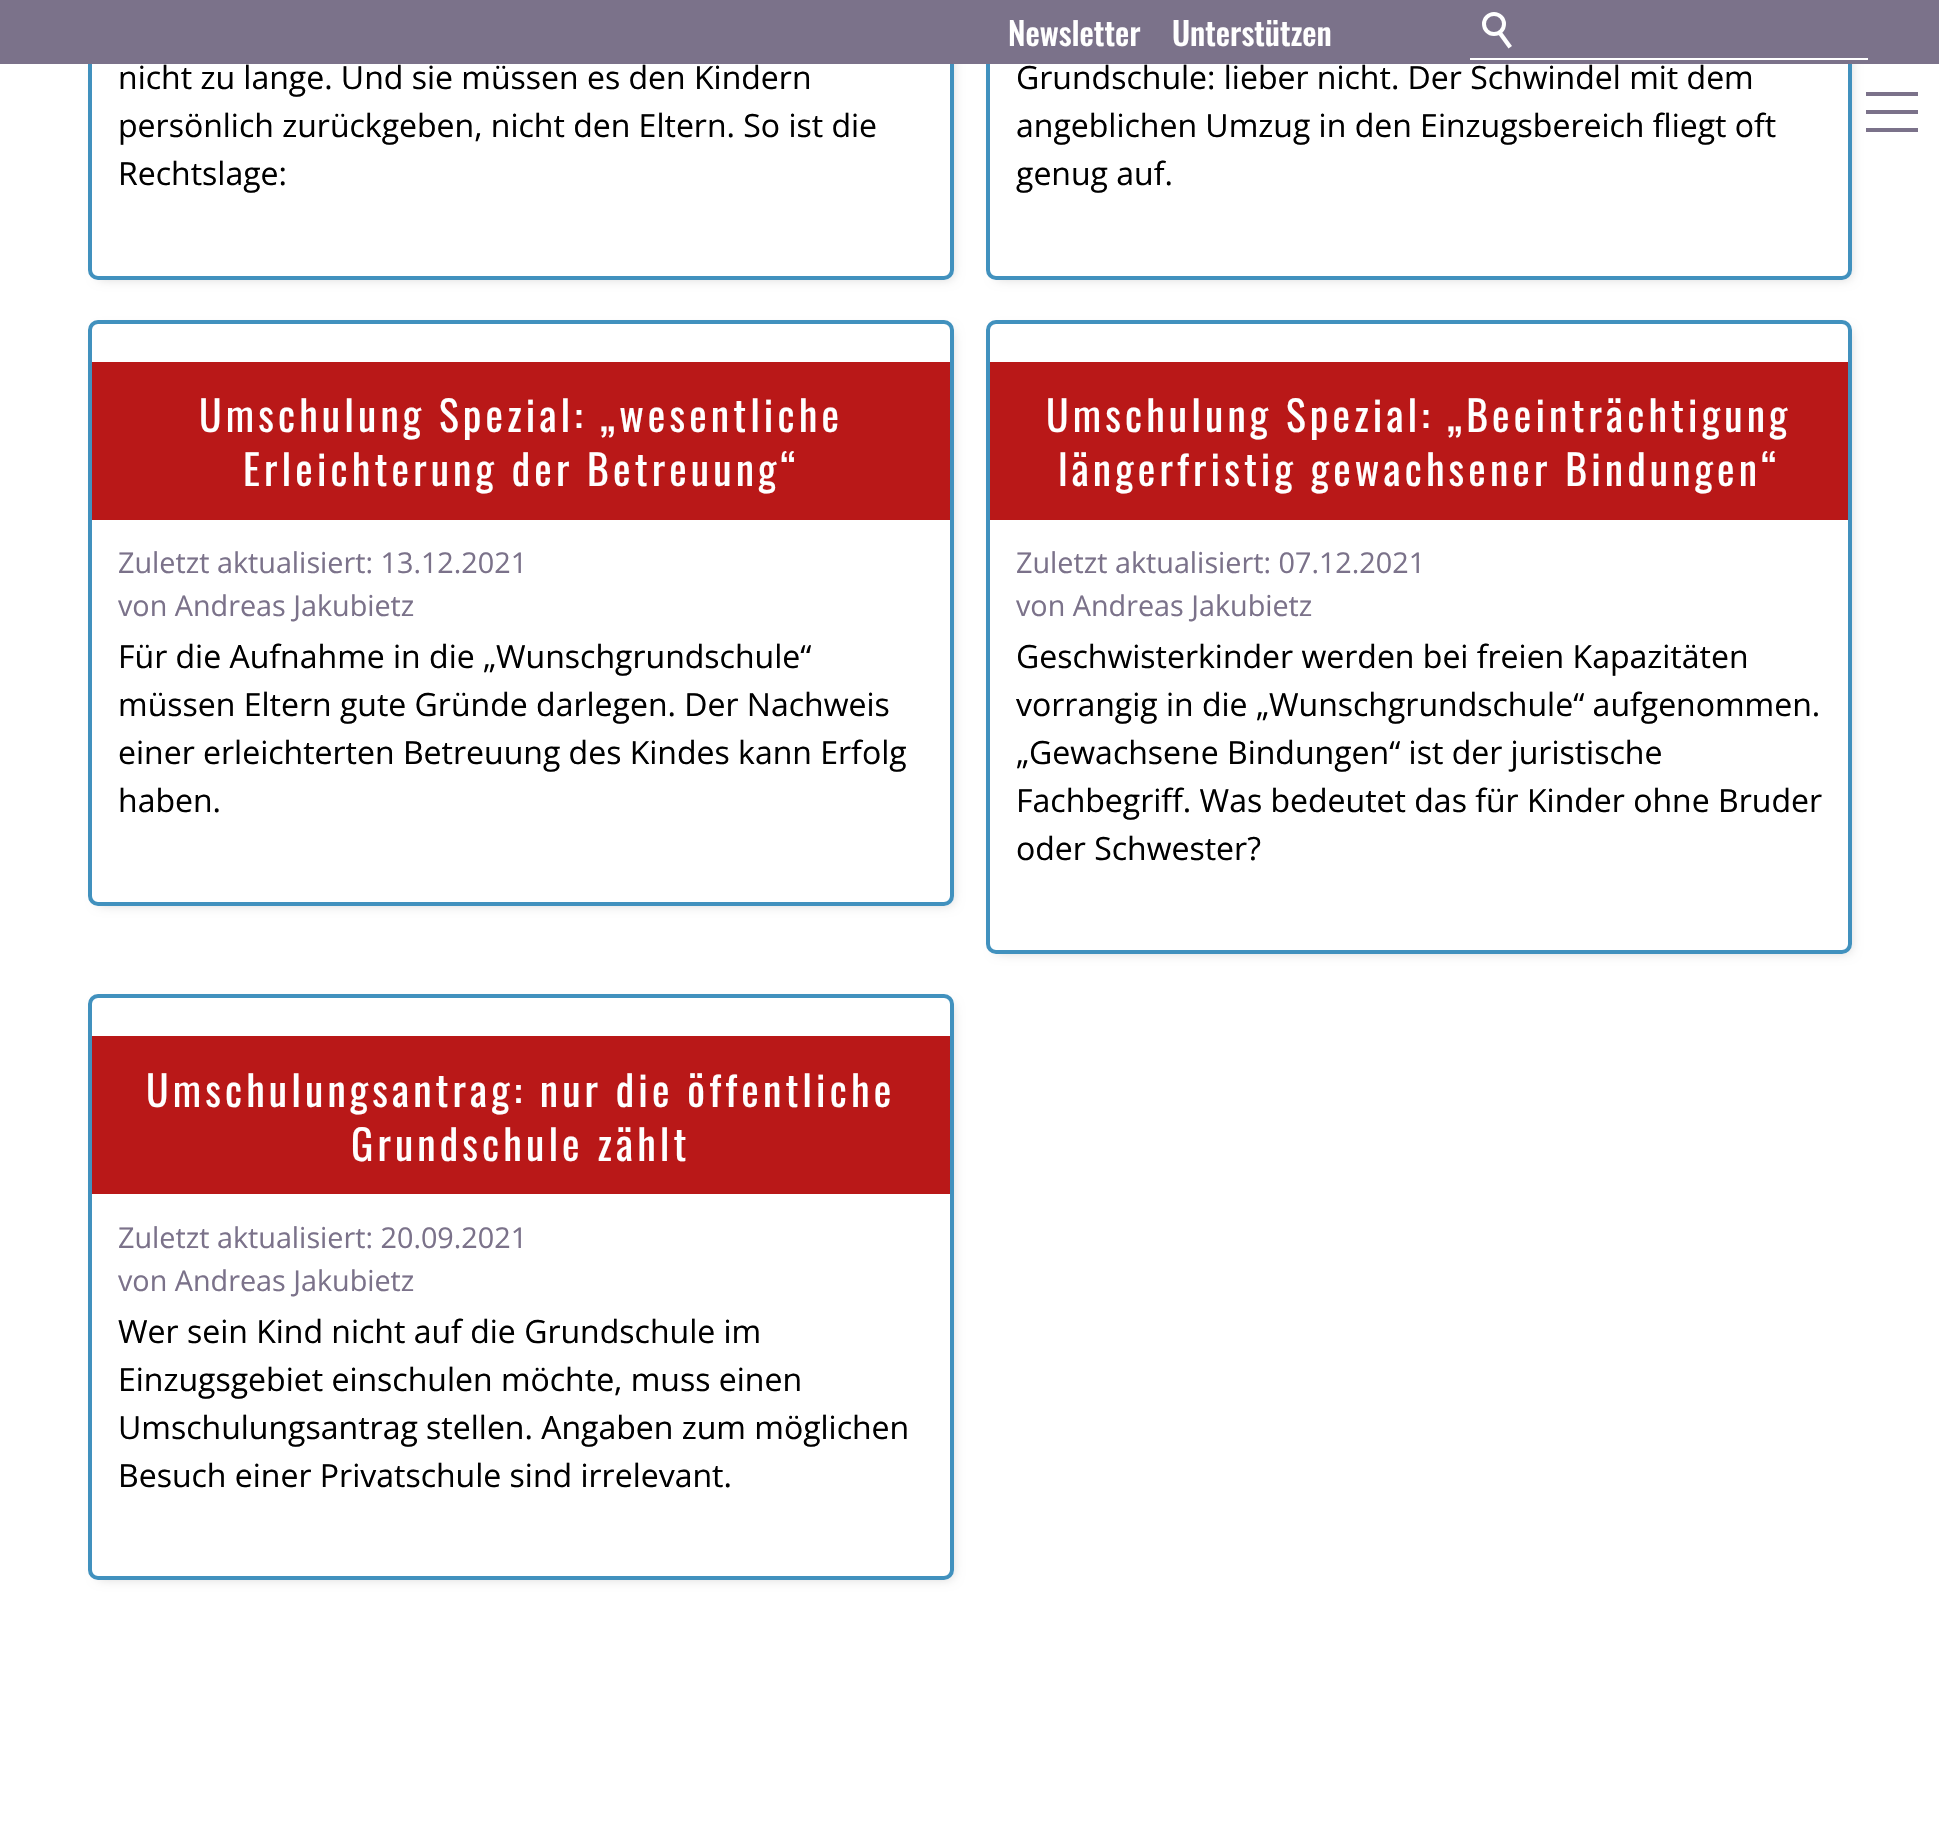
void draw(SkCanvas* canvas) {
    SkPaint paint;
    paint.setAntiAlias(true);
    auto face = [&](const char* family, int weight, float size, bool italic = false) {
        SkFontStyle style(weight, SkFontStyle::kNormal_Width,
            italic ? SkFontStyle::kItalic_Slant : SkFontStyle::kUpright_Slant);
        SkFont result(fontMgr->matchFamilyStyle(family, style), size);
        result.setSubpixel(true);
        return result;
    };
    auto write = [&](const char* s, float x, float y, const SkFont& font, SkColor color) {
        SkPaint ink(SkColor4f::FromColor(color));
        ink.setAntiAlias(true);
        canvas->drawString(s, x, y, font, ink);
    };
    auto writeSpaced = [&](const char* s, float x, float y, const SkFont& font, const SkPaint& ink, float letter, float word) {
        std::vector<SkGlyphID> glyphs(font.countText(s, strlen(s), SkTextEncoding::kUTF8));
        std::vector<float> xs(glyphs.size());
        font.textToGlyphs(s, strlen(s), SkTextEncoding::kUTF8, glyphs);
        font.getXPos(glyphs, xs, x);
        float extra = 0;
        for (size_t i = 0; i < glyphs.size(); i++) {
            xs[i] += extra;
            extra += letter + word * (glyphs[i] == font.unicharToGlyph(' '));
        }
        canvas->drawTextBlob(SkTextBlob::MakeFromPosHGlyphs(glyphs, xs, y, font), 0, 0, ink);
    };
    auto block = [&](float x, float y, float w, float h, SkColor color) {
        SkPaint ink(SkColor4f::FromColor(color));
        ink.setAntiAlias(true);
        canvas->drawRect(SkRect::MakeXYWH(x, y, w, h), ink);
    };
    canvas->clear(SK_ColorWHITE);
    canvas->save();
    canvas->clipPath(SkPathBuilder(SkPathFillType::kEvenOdd).moveTo(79, 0).lineTo(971, 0).lineTo(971, 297).lineTo(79, 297).close().moveTo(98, -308).lineTo(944, -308).cubicTo(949.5f, -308, 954, -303.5f, 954, -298).lineTo(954, 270).cubicTo(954, 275.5f, 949.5f, 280, 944, 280).lineTo(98, 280).cubicTo(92.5f, 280, 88, 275.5f, 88, 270).lineTo(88, -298).cubicTo(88, -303.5f, 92.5f, -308, 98, -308).close().detach(), true);
    paint.setColor(SkColorSetARGB(51, 0, 0, 0));
    paint.setMaskFilter(SkMaskFilter::MakeBlur(kNormal_SkBlurStyle, 6));
    canvas->drawRoundRect(SkRect::MakeXYWH(98, -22, 854, 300), 4, 4, paint);
    paint.setMaskFilter(nullptr);
    canvas->restore();
    paint.setStyle(SkPaint::kStroke_Style);
    paint.setStrokeWidth(4);
    paint.setColor(SkColorSetRGB(65, 145, 190));
    canvas->drawRoundRect(SkRect::MakeXYWH(90, -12, 862, 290), 8, 8, paint);
    canvas->save();
    canvas->clipPath(SkPathBuilder(SkPathFillType::kEvenOdd).moveTo(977, 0).lineTo(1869, 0).lineTo(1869, 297).lineTo(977, 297).close().moveTo(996, -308).lineTo(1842, -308).cubicTo(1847.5f, -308, 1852, -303.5f, 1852, -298).lineTo(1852, 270).cubicTo(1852, 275.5f, 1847.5f, 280, 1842, 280).lineTo(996, 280).cubicTo(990.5f, 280, 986, 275.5f, 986, 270).lineTo(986, -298).cubicTo(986, -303.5f, 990.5f, -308, 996, -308).close().detach(), true);
    paint.setStyle(SkPaint::kFill_Style);
    paint.setColor(SkColorSetARGB(51, 0, 0, 0));
    paint.setMaskFilter(SkMaskFilter::MakeBlur(kNormal_SkBlurStyle, 6));
    canvas->drawRoundRect(SkRect::MakeXYWH(996, -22, 854, 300), 4, 4, paint);
    paint.setMaskFilter(nullptr);
    canvas->restore();
    paint.setStyle(SkPaint::kStroke_Style);
    paint.setColor(SkColorSetRGB(65, 145, 190));
    canvas->drawRoundRect(SkRect::MakeXYWH(988, -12, 862, 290), 8, 8, paint);
    block(0, 0, 1939, 64, SkColorSetRGB(123, 114, 138));
    auto kFont1 = face("Oswald", 500, 32);
    write("Newsletter", 1008, 46, kFont1, SK_ColorWHITE);
    write("Unterstützen", 1172, 46, kFont1, SK_ColorWHITE);
    paint.setColor(SK_ColorWHITE);
    canvas->drawCircle(1494, 24, 10, paint);
    paint.setStyle(SkPaint::kFill_Style);
    canvas->drawPath(SkPathBuilder().moveTo(1501.5f, 31.5f).lineTo(1512, 46).lineTo(1508.5f, 48.5f).lineTo(1498, 34).close().detach(), paint);
    block(1468, 58, 400, 2, SK_ColorWHITE);
    block(1468, 58, 2, 2, SkColorSetRGB(123, 114, 138));
    block(1866, 92, 52, 4, SkColorSetRGB(123, 114, 138));
    block(1866, 110, 52, 4, SkColorSetRGB(123, 114, 138));
    block(1866, 128, 52, 4, SkColorSetRGB(123, 114, 138));
    auto kFont2 = face("Open Sans", 400, 32);
    write("nicht zu lange. Und sie müssen es den Kindern", 118, 89, kFont2, SK_ColorBLACK);
    write("persönlich zurückgeben, nicht den Eltern. So ist die", 118, 137, kFont2, SK_ColorBLACK);
    write("Rechtslage:", 118, 185, kFont2, SK_ColorBLACK);
    write("Grundschule: lieber nicht. Der Schwindel mit dem", 1016, 89, kFont2, SK_ColorBLACK);
    write("angeblichen Umzug in den Einzugsbereich fliegt oft", 1016, 137, kFont2, SK_ColorBLACK);
    write("genug auf.", 1016, 185, kFont2, SK_ColorBLACK);
    canvas->save();
    canvas->clipPath(SkPathBuilder(SkPathFillType::kEvenOdd).moveTo(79, 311).lineTo(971, 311).lineTo(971, 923).lineTo(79, 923).close().moveTo(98, 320).lineTo(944, 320).cubicTo(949.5f, 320, 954, 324.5f, 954, 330).lineTo(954, 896).cubicTo(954, 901.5f, 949.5f, 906, 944, 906).lineTo(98, 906).cubicTo(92.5f, 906, 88, 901.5f, 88, 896).lineTo(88, 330).cubicTo(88, 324.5f, 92.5f, 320, 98, 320).close().detach(), true);
    paint.setColor(SkColorSetARGB(51, 0, 0, 0));
    paint.setMaskFilter(SkMaskFilter::MakeBlur(kNormal_SkBlurStyle, 6));
    canvas->drawRoundRect(SkRect::MakeXYWH(98, 330, 854, 574), 4, 4, paint);
    paint.setMaskFilter(nullptr);
    canvas->restore();
    paint.setStyle(SkPaint::kStroke_Style);
    paint.setColor(SkColorSetRGB(65, 145, 190));
    canvas->drawRoundRect(SkRect::MakeXYWH(90, 322, 862, 582), 8, 8, paint);
    block(92, 362, 858, 158, SkColorSetRGB(185, 24, 24));
    auto kFont3 = face("Oswald", 400, 41.6f);
    paint.setStyle(SkPaint::kFill_Style);
    paint.setColor(SK_ColorWHITE);
    writeSpaced("Umschulung Spezial: „wesentliche", 199, 432, kFont3, paint, 4.15f, 0);
    writeSpaced("Erleichterung der Betreuung“", 243, 486, kFont3, paint, 4.15f, 0);
    auto kFont4 = face("Open Sans", 400, 28.75f);
    write("Zuletzt aktualisiert: 13.12.2021", 118, 573, kFont4, SkColorSetRGB(123, 114, 138));
    write("von Andreas Jakubietz", 118, 616, kFont4, SkColorSetRGB(123, 114, 138));
    write("Für die Aufnahme in die „Wunschgrundschule“", 118, 668, kFont2, SK_ColorBLACK);
    write("müssen Eltern gute Gründe darlegen. Der Nachweis", 118, 716, kFont2, SK_ColorBLACK);
    write("einer erleichterten Betreuung des Kindes kann Erfolg", 118, 764, kFont2, SK_ColorBLACK);
    write("haben.", 118, 812, kFont2, SK_ColorBLACK);
    canvas->save();
    canvas->clipPath(SkPathBuilder(SkPathFillType::kEvenOdd).moveTo(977, 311).lineTo(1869, 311).lineTo(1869, 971).lineTo(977, 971).close().moveTo(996, 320).lineTo(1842, 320).cubicTo(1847.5f, 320, 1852, 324.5f, 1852, 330).lineTo(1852, 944).cubicTo(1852, 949.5f, 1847.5f, 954, 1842, 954).lineTo(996, 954).cubicTo(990.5f, 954, 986, 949.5f, 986, 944).lineTo(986, 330).cubicTo(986, 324.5f, 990.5f, 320, 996, 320).close().detach(), true);
    paint.setColor(SkColorSetARGB(51, 0, 0, 0));
    paint.setMaskFilter(SkMaskFilter::MakeBlur(kNormal_SkBlurStyle, 6));
    canvas->drawRoundRect(SkRect::MakeXYWH(996, 330, 854, 622), 4, 4, paint);
    paint.setMaskFilter(nullptr);
    canvas->restore();
    paint.setStyle(SkPaint::kStroke_Style);
    paint.setColor(SkColorSetRGB(65, 145, 190));
    canvas->drawRoundRect(SkRect::MakeXYWH(988, 322, 862, 630), 8, 8, paint);
    block(990, 362, 858, 158, SkColorSetRGB(185, 24, 24));
    paint.setStyle(SkPaint::kFill_Style);
    paint.setColor(SK_ColorWHITE);
    writeSpaced("Umschulung Spezial: „Beeinträchtigung", 1046, 432, kFont3, paint, 4.15f, 0);
    writeSpaced("längerfristig gewachsener Bindungen“", 1058, 486, kFont3, paint, 4.15f, 0);
    write("Zuletzt aktualisiert: 07.12.2021", 1016, 573, kFont4, SkColorSetRGB(123, 114, 138));
    write("von Andreas Jakubietz", 1016, 616, kFont4, SkColorSetRGB(123, 114, 138));
    write("Geschwisterkinder werden bei freien Kapazitäten", 1016, 668, kFont2, SK_ColorBLACK);
    write("vorrangig in die „Wunschgrundschule“ aufgenommen.", 1016, 716, kFont2, SK_ColorBLACK);
    write("„Gewachsene Bindungen“ ist der juristische", 1016, 764, kFont2, SK_ColorBLACK);
    write("Fachbegriff. Was bedeutet das für Kinder ohne Bruder", 1016, 812, kFont2, SK_ColorBLACK);
    write("oder Schwester?", 1016, 860, kFont2, SK_ColorBLACK);
    canvas->save();
    canvas->clipPath(SkPathBuilder(SkPathFillType::kEvenOdd).moveTo(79, 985).lineTo(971, 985).lineTo(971, 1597).lineTo(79, 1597).close().moveTo(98, 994).lineTo(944, 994).cubicTo(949.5f, 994, 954, 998.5f, 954, 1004).lineTo(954, 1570).cubicTo(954, 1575.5f, 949.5f, 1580, 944, 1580).lineTo(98, 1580).cubicTo(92.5f, 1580, 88, 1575.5f, 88, 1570).lineTo(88, 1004).cubicTo(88, 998.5f, 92.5f, 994, 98, 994).close().detach(), true);
    paint.setColor(SkColorSetARGB(51, 0, 0, 0));
    paint.setMaskFilter(SkMaskFilter::MakeBlur(kNormal_SkBlurStyle, 6));
    canvas->drawRoundRect(SkRect::MakeXYWH(98, 1004, 854, 574), 4, 4, paint);
    paint.setMaskFilter(nullptr);
    canvas->restore();
    paint.setStyle(SkPaint::kStroke_Style);
    paint.setColor(SkColorSetRGB(65, 145, 190));
    canvas->drawRoundRect(SkRect::MakeXYWH(90, 996, 862, 582), 8, 8, paint);
    block(92, 1036, 858, 158, SkColorSetRGB(185, 24, 24));
    paint.setStyle(SkPaint::kFill_Style);
    paint.setColor(SK_ColorWHITE);
    writeSpaced("Umschulungsantrag: nur die öffentliche", 146, 1107, kFont3, paint, 4.15f, 0);
    writeSpaced("Grundschule zählt", 351, 1161, kFont3, paint, 4.15f, 0);
    write("Zuletzt aktualisiert: 20.09.2021", 118, 1248, kFont4, SkColorSetRGB(123, 114, 138));
    write("von Andreas Jakubietz", 118, 1291, kFont4, SkColorSetRGB(123, 114, 138));
    write("Wer sein Kind nicht auf die Grundschule im", 118, 1343, kFont2, SK_ColorBLACK);
    write("Einzugsgebiet einschulen möchte, muss einen", 118, 1391, kFont2, SK_ColorBLACK);
    write("Umschulungsantrag stellen. Angaben zum möglichen", 118, 1439, kFont2, SK_ColorBLACK);
    write("Besuch einer Privatschule sind irrelevant.", 118, 1487, kFont2, SK_ColorBLACK);
}
